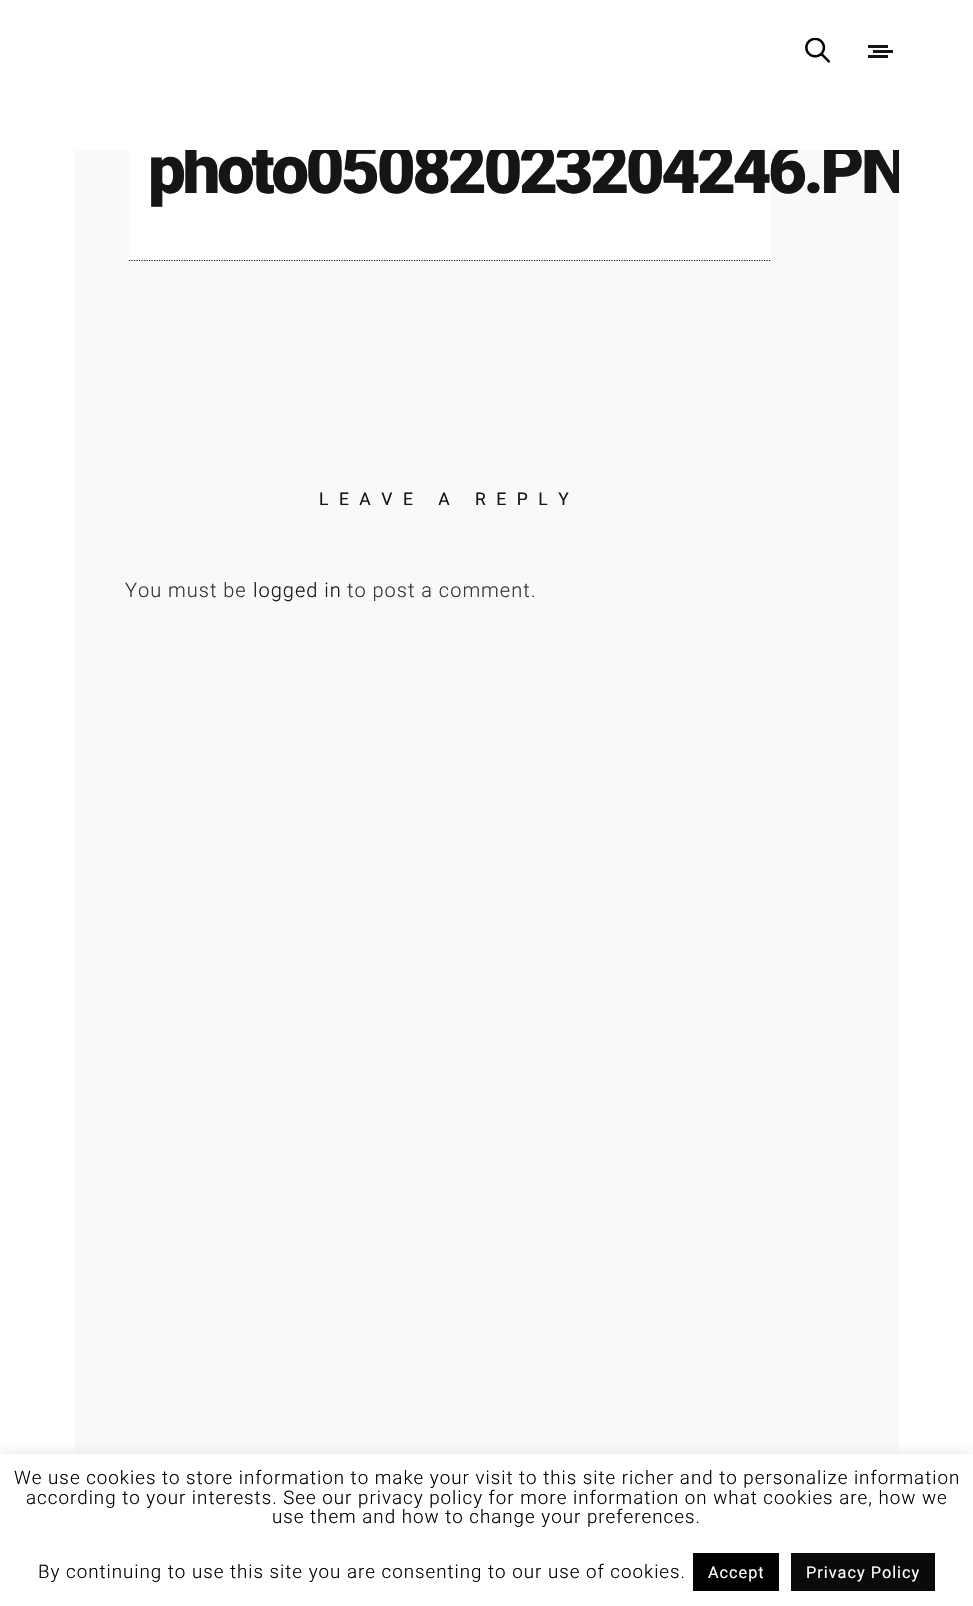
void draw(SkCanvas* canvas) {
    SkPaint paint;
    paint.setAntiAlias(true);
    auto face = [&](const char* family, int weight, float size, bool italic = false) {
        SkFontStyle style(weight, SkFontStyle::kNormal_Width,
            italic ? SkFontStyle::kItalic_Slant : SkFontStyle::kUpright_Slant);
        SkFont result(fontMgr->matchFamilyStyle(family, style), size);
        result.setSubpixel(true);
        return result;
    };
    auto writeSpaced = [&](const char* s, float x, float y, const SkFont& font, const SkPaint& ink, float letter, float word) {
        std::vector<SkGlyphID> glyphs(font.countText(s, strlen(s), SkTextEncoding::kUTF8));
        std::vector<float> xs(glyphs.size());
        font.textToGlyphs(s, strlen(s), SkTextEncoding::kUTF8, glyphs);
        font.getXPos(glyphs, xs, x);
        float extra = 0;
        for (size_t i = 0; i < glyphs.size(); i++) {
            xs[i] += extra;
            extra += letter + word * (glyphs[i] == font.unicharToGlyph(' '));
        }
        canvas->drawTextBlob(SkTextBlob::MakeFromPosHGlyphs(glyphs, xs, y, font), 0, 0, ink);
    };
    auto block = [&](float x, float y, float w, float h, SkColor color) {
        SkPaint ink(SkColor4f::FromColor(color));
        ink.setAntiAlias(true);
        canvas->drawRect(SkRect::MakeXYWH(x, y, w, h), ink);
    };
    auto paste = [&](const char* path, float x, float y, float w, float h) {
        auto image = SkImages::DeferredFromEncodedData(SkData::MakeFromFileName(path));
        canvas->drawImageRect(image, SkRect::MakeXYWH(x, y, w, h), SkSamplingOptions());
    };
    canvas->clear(SkColorSetRGB(249, 249, 249));
    block(129, 150, 642, 111, SK_ColorWHITE);
    auto kFont1 = face("Roboto", 900, 67.25f);
    paint.setColor(SkColorSetRGB(21, 21, 21));
    writeSpaced("photo05082023204246.PN", 148, 193, kFont1, paint, -3.4f, 0);
    block(0, 0, 973, 150, SK_ColorWHITE);
    paste("pic1.png", 805, 38, 25, 25);
    block(868, 45, 20, 3, SkColorSetRGB(21, 21, 21));
    block(873, 50, 20, 3, SkColorSetRGB(21, 21, 21));
    block(868, 55, 20, 3, SkColorSetRGB(21, 21, 21));
    block(0, 150, 75, 1304, SK_ColorWHITE);
    paint.setStyle(SkPaint::kStroke_Style);
    paint.setStrokeWidth(1.2f);
    paint.setPathEffect(SkDashPathEffect::Make({{1.25f, 1.25f}}, 0));
    canvas->drawPath(SkPathBuilder().moveTo(129, 260.5f).lineTo(771, 260.5f).detach(), paint);
    paint.setPathEffect(nullptr);
    auto kFont2 = face("Roboto", 400, 17.5f);
    paint.setStyle(SkPaint::kFill_Style);
    writeSpaced("LEAVE A REPLY", 319, 505, kFont2, paint, 10.5f, 0);
    auto kFont3 = face("Roboto", 300, 20);
    paint.setColor(SkColorSetRGB(53, 53, 53));
    writeSpaced("You must be", 125, 597, kFont3, paint, 1, 0);
    paint.setColor(SkColorSetRGB(21, 21, 21));
    writeSpaced("logged in", 253, 597, kFont3, paint, 1, 0);
    paint.setColor(SkColorSetRGB(53, 53, 53));
    writeSpaced("to post a comment.", 347, 597, kFont3, paint, 1, 0);
    block(899, 150, 74, 1304, SK_ColorWHITE);
    paint.setColor(SkColorSetARGB(77, 172, 171, 171));
    paint.setMaskFilter(SkMaskFilter::MakeBlur(kNormal_SkBlurStyle, 6));
    canvas->drawRect(SkRect::MakeXYWH(0, 1453, 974, 152), paint);
    paint.setMaskFilter(nullptr);
    block(0, 1454, 973, 152, SK_ColorWHITE);
    auto kFont4 = face("Roboto", 300, 18.75f);
    paint.setColor(SK_ColorBLACK);
    writeSpaced("We use cookies to store information to make your visit to this site richer and to personalize information", 14, 1484, kFont4, paint, 1, 0);
    writeSpaced("according to your interests. See our privacy policy for more information on what cookies are, how we", 26, 1504, kFont4, paint, 1, 0);
    writeSpaced("use them and how to change your preferences.", 272, 1523, kFont4, paint, 1, 0);
    writeSpaced("By continuing to use this site you are consenting to our use of cookies.", 38, 1578, kFont4, paint, 1, 0);
    block(693, 1553, 86, 38, SK_ColorBLACK);
    auto kFont5 = face("Roboto", 400, 16.25f);
    paint.setColor(SK_ColorWHITE);
    writeSpaced("Accept", 708, 1578, kFont5, paint, 1, 0);
    block(791, 1553, 144, 38, SkColorSetRGB(10, 10, 10));
    writeSpaced("Privacy Policy", 806, 1578, kFont5, paint, 1, 0);
}
